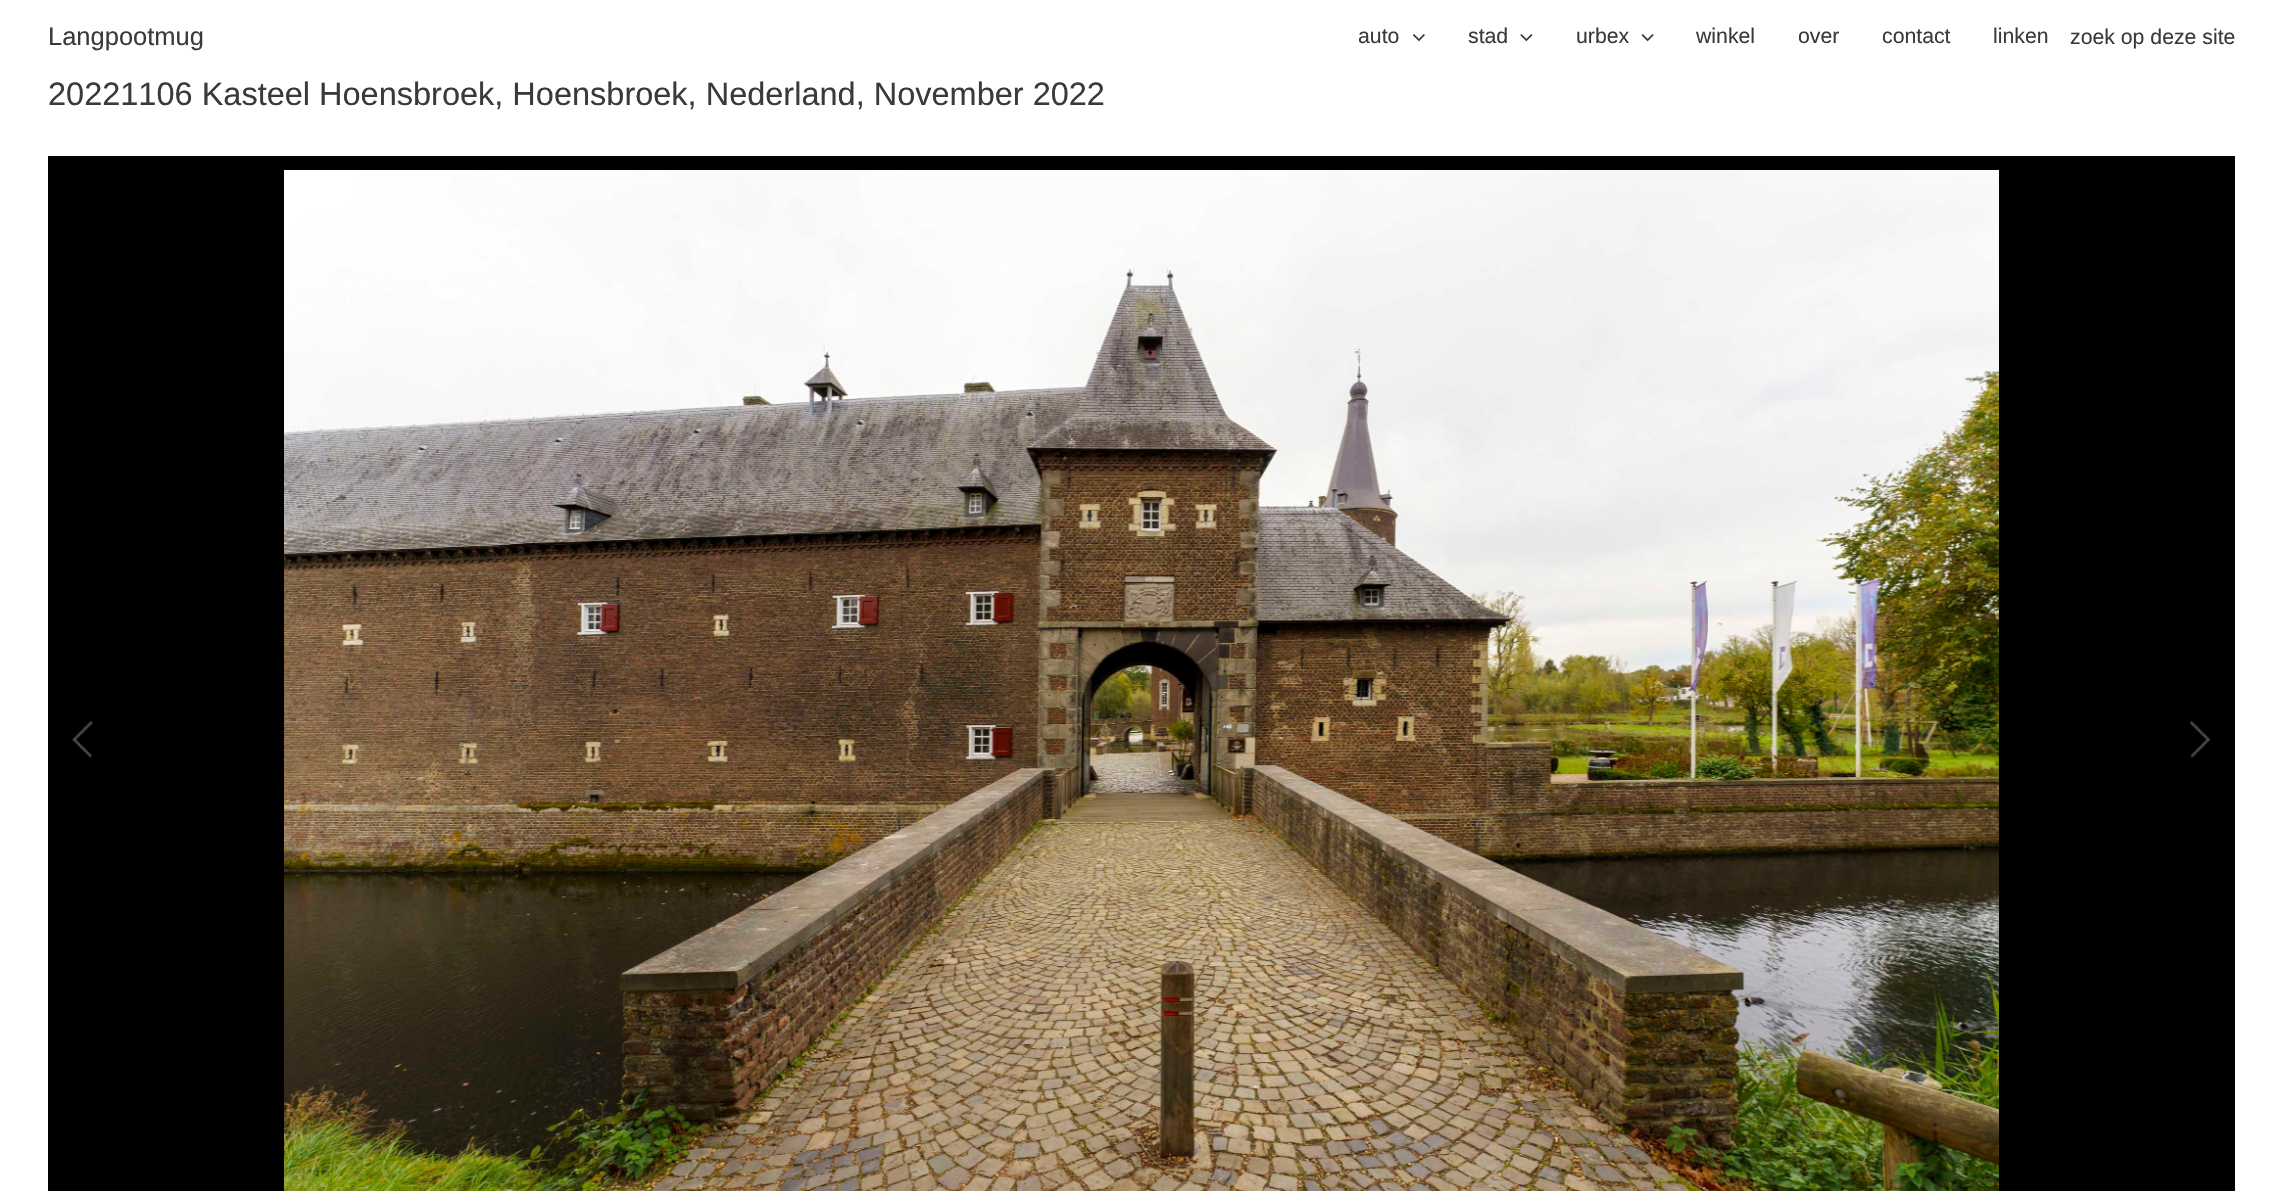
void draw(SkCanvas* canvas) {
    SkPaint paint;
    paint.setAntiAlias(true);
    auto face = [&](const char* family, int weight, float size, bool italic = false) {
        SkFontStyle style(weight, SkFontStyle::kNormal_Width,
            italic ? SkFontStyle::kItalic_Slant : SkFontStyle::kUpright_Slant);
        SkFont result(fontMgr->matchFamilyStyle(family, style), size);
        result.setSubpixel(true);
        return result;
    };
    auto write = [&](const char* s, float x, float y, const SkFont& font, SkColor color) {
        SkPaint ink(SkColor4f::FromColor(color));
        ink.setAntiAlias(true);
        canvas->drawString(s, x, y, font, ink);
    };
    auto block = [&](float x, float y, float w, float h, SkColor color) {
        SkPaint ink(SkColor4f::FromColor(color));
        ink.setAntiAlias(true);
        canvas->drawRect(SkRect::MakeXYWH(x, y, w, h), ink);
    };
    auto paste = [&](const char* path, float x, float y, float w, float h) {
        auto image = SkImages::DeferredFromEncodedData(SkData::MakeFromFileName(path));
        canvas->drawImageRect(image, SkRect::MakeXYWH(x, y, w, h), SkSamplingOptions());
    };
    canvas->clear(SK_ColorWHITE);
    auto kFont1 = face("Liberation Sans", 400, 25.5f);
    write("Langpootmug", 48, 45, kFont1, SkColorSetRGB(58, 58, 58));
    auto kFont2 = face("Liberation Sans", 400, 21.25f);
    write("auto", 1358, 43, kFont2, SkColorSetRGB(58, 58, 58));
    paste("pic1.png", 1413, 34, 12, 8);
    write("stad", 1468, 43, kFont2, SkColorSetRGB(58, 58, 58));
    paste("pic2.png", 1520, 34, 13, 8);
    write("urbex", 1576, 43, kFont2, SkColorSetRGB(58, 58, 58));
    paste("pic3.png", 1641, 34, 13, 8);
    write("winkel", 1696, 43, kFont2, SkColorSetRGB(58, 58, 58));
    write("over", 1798, 43, kFont2, SkColorSetRGB(58, 58, 58));
    write("contact", 1882, 43, kFont2, SkColorSetRGB(58, 58, 58));
    write("linken", 1993, 43, kFont2, SkColorSetRGB(58, 58, 58));
    write("zoek op deze site", 2070, 44, kFont2, SkColorSetRGB(58, 58, 58));
    auto kFont3 = face("Liberation Sans", 400, 32.5f);
    write("20221106 Kasteel Hoensbroek, Hoensbroek, Nederland, November 2022", 48, 105, kFont3, SkColorSetRGB(58, 58, 58));
    block(48, 156, 2187, 1035, SK_ColorBLACK);
    paste("pic4.png", 284, 170, 1715, 1021);
    paste("pic5.png", 72, 721, 21, 37);
    paste("pic6.png", 2190, 721, 20, 37);
}
